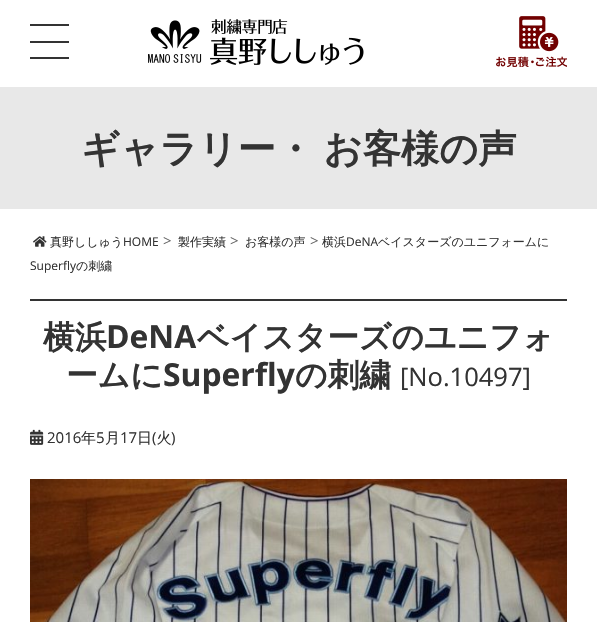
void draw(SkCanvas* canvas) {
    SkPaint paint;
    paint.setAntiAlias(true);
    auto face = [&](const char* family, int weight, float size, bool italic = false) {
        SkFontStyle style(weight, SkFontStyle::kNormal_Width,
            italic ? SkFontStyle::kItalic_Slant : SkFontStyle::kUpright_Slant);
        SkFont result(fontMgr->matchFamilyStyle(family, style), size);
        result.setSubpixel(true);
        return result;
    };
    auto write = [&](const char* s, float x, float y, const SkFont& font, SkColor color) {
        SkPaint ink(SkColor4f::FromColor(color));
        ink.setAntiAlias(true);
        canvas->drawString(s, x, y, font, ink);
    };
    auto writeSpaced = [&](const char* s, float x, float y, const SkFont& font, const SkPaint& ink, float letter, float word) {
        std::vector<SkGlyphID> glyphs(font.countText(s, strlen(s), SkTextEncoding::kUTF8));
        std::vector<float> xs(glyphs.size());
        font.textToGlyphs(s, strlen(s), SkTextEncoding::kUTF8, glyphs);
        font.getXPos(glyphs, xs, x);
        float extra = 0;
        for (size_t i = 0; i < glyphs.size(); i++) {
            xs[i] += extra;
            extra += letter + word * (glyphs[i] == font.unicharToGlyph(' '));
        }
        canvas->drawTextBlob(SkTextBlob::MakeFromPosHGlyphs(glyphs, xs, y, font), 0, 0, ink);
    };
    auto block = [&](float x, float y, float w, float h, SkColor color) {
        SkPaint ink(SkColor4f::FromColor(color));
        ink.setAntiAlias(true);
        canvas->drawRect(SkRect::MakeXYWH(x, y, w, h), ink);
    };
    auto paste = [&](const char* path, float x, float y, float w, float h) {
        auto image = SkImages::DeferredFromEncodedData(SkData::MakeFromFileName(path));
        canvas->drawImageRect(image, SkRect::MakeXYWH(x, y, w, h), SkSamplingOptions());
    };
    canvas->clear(SK_ColorWHITE);
    block(30, 24, 39, 2, SkColorSetRGB(51, 51, 51));
    block(30, 41, 39, 2, SkColorSetRGB(51, 51, 51));
    block(30, 57, 39, 2, SkColorSetRGB(51, 51, 51));
    paste("pic1.png", 148, 19, 216, 46);
    paste("pic2.png", 496, 16, 71, 51);
    block(0, 87, 597, 122, SkColorSetRGB(232, 232, 232));
    auto kFont1 = face("WenQuanYi Zen Hei", 700, 38.25f);
    paint.setColor(SkColorSetRGB(51, 51, 51));
    writeSpaced("ギャラリー・ お客様の声", 81, 162, kFont1, paint, 0, -2);
    paste("pic3.png", 33, 236, 14, 11);
    auto kFont2 = face("WenQuanYi Zen Hei", 500, 12);
    write("真野ししゅう", 50, 246, kFont2, SkColorSetRGB(51, 51, 51));
    auto kFont3 = face("Open Sans", 400, 12);
    write("HOME", 123, 246, kFont3, SkColorSetRGB(51, 51, 51));
    auto kFont4 = face("Open Sans", 400, 15);
    write(">", 163, 246, kFont4, SkColorSetRGB(102, 102, 102));
    write("製作実績", 178, 246, kFont2, SkColorSetRGB(51, 51, 51));
    write(">", 230, 246, kFont4, SkColorSetRGB(102, 102, 102));
    write("お客様の声", 245, 246, kFont2, SkColorSetRGB(51, 51, 51));
    write(">", 310, 246, kFont4, SkColorSetRGB(102, 102, 102));
    write("横浜", 322, 246, kFont2, SkColorSetRGB(51, 51, 51));
    write("DeNA", 346, 246, kFont3, SkColorSetRGB(51, 51, 51));
    write("ベイスターズのユニフォームに", 378, 246, kFont2, SkColorSetRGB(51, 51, 51));
    write("Superfly", 30, 270, kFont3, SkColorSetRGB(51, 51, 51));
    write("の刺繍", 76, 270, kFont2, SkColorSetRGB(51, 51, 51));
    block(30, 299, 537, 2, SkColorSetRGB(51, 51, 51));
    auto kFont5 = face("WenQuanYi Zen Hei", 700, 31.8f);
    write("横浜", 43, 348, kFont5, SkColorSetRGB(51, 51, 51));
    auto kFont6 = face("Open Sans", 700, 31.8f);
    write("DeNA", 106, 348, kFont6, SkColorSetRGB(51, 51, 51));
    write("ベイスターズのユニフォ", 197, 348, kFont5, SkColorSetRGB(51, 51, 51));
    write("ームに", 66, 386, kFont5, SkColorSetRGB(51, 51, 51));
    write("Superfly", 163, 386, kFont6, SkColorSetRGB(51, 51, 51));
    write("の刺繍", 295, 386, kFont5, SkColorSetRGB(51, 51, 51));
    auto kFont7 = face("Open Sans", 400, 25.5f);
    write("[No.10497]", 400, 386, kFont7, SkColorSetRGB(51, 51, 51));
    paste("pic4.png", 30, 429, 14, 16);
    write("2016", 47, 443, kFont4, SkColorSetRGB(51, 51, 51));
    auto kFont8 = face("WenQuanYi Zen Hei", 500, 15);
    write("年", 81, 443, kFont8, SkColorSetRGB(51, 51, 51));
    write("5", 96, 443, kFont4, SkColorSetRGB(51, 51, 51));
    write("月", 105, 443, kFont8, SkColorSetRGB(51, 51, 51));
    write("17", 120, 443, kFont4, SkColorSetRGB(51, 51, 51));
    write("日 火", 137, 443, kFont8, SkColorSetRGB(51, 51, 51));
    write("(", 152, 443, kFont4, SkColorSetRGB(51, 51, 51));
    write(")", 171, 443, kFont4, SkColorSetRGB(51, 51, 51));
    paste("pic5.png", 30, 479, 537, 143);
}
